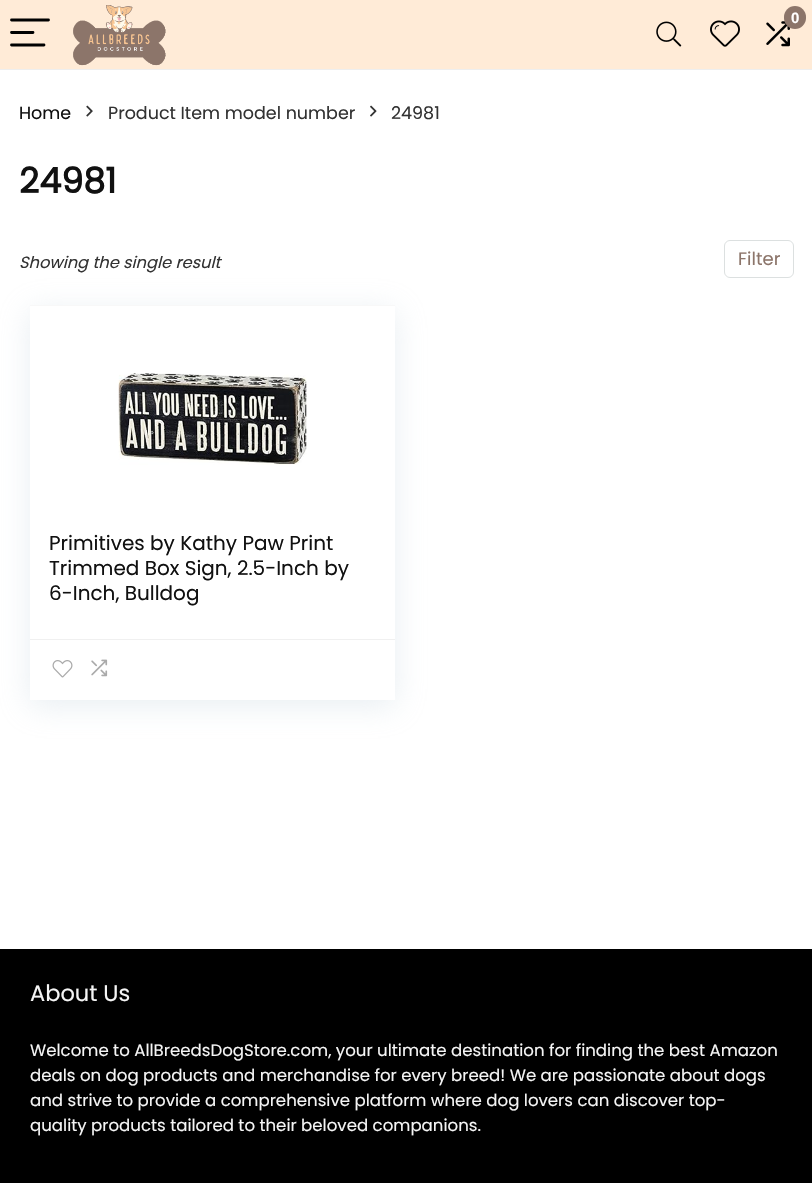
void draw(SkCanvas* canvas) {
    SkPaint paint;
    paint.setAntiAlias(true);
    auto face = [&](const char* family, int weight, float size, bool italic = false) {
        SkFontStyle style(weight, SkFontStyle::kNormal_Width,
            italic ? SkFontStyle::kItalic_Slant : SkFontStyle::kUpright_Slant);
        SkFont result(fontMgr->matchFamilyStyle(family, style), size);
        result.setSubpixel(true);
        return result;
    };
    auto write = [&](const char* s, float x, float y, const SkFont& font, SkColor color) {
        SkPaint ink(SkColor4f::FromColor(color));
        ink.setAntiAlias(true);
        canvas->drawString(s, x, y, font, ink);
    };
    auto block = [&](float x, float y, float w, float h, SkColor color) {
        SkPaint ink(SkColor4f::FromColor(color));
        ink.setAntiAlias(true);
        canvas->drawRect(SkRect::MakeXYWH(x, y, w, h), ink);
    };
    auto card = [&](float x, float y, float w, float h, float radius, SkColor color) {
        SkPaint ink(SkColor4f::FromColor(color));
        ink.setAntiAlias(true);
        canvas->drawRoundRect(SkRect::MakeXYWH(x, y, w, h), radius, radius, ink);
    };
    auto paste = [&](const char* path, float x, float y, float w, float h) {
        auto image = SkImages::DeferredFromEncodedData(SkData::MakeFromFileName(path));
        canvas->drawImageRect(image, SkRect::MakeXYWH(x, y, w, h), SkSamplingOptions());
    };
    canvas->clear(SK_ColorWHITE);
    block(0, 0, 812, 69, SkColorSetRGB(255, 235, 215));
    block(0, 69, 812, 1, SkColorSetRGB(238, 238, 238));
    paint.setStyle(SkPaint::kStroke_Style);
    paint.setStrokeWidth(2.8f);
    paint.setStrokeCap(SkPaint::kRound_Cap);
    paint.setColor(SK_ColorBLACK);
    canvas->drawPath(SkPathBuilder().moveTo(11.5f, 20).lineTo(48.5f, 20).moveTo(11.5f, 32.5f).lineTo(33, 32.5f).moveTo(11.5f, 45).lineTo(44, 45).detach(), paint);
    paste("pic1.png", 73, 5, 93, 61);
    paste("pic2.png", 766, 21, 24, 26);
    card(784, 6, 22, 23, 11, SkColorSetRGB(140, 117, 106));
    auto kFont1 = face("Liberation Sans", 700, 15);
    write("0", 791, 23, kFont1, SK_ColorWHITE);
    paste("pic3.png", 656, 21, 26, 26);
    paste("pic4.png", 710, 20, 30, 27);
    auto kFont2 = face("Poppins", 400, 17.5f);
    write("Home", 19, 119, kFont2, SkColorSetRGB(17, 17, 17));
    paste("pic5.png", 86, 105, 7, 12);
    write("Product Item model number", 108, 119, kFont2, SkColorSetRGB(51, 51, 51));
    paste("pic6.png", 370, 105, 7, 12);
    write("24981", 391, 119, kFont2, SkColorSetRGB(51, 51, 51));
    auto kFont3 = face("Poppins", 700, 35);
    write("24981", 19, 193, kFont3, SkColorSetRGB(17, 17, 17));
    auto kFont4 = face("Poppins", 400, 16.25f, true);
    write("Showing the single result", 19, 268, kFont4, SkColorSetRGB(51, 51, 51));
    paint.setStrokeWidth(1);
    paint.setStrokeCap(SkPaint::kButt_Cap);
    paint.setColor(SkColorSetRGB(220, 224, 224));
    canvas->drawRoundRect(SkRect::MakeXYWH(724.5f, 240.5f, 69, 37), 5.5f, 5.5f, paint);
    auto kFont5 = face("Poppins", 400, 18);
    write("Filter", 738, 265, kFont5, SkColorSetRGB(140, 117, 106));
    canvas->save();
    canvas->clipPath(SkPathBuilder(SkPathFillType::kEvenOdd).moveTo(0, 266).lineTo(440, 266).lineTo(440, 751).lineTo(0, 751).close().moveTo(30, 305).lineTo(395, 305).lineTo(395, 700).lineTo(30, 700).close().detach(), true);
    paint.setStyle(SkPaint::kFill_Style);
    paint.setColor(SkColorSetARGB(89, 188, 207, 219));
    paint.setMaskFilter(SkMaskFilter::MakeBlur(kNormal_SkBlurStyle, 14.5f));
    canvas->drawRect(SkRect::MakeXYWH(30, 311, 365, 395), paint);
    paint.setMaskFilter(nullptr);
    canvas->restore();
    block(30, 305, 365, 1, SkColorSetRGB(248, 248, 248));
    paste("pic7.png", 118, 373, 189, 92);
    auto kFont6 = face("Poppins", 400, 20);
    write("Primitives by Kathy Paw Print", 49, 550, kFont6, SkColorSetRGB(17, 17, 17));
    write("Trimmed Box Sign, 2.5-Inch by", 49, 575, kFont6, SkColorSetRGB(17, 17, 17));
    write("6-Inch, Bulldog", 49, 600, kFont6, SkColorSetRGB(17, 17, 17));
    block(30, 639, 365, 1, SkColorSetRGB(240, 240, 240));
    paste("pic8.png", 52, 660, 21, 18);
    paste("pic9.png", 91, 659, 17, 18);
    block(0, 949, 812, 234, SK_ColorBLACK);
    auto kFont7 = face("Poppins", 400, 22.5f);
    write("About Us", 30, 1001, kFont7, SkColorSetRGB(245, 245, 245));
    auto kFont8 = face("Poppins", 400, 16.6f);
    write("Welcome to AllBreedsDogStore.com, your ultimate destination for finding the best Amazon", 30, 1056, kFont8, SkColorSetRGB(245, 245, 245));
    write("deals on dog products and merchandise for every breed! We are passionate about dogs", 30, 1081, kFont8, SkColorSetRGB(245, 245, 245));
    write("and strive to provide a comprehensive platform where dog lovers can discover top-", 30, 1106, kFont8, SkColorSetRGB(245, 245, 245));
    write("quality products tailored to their beloved companions.", 30, 1131, kFont8, SkColorSetRGB(245, 245, 245));
}
